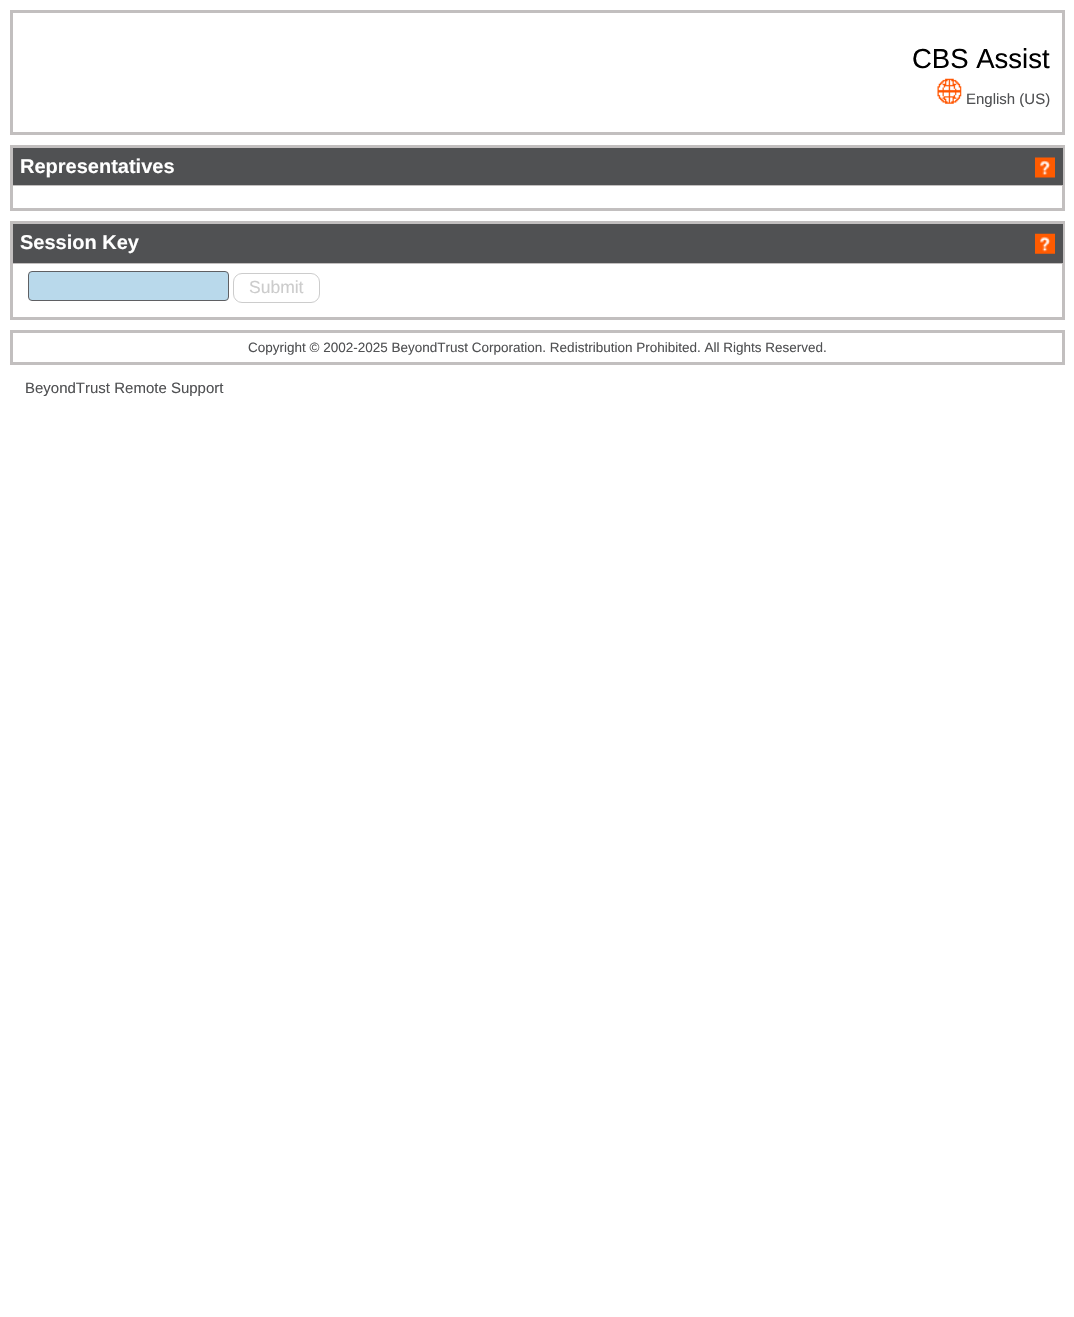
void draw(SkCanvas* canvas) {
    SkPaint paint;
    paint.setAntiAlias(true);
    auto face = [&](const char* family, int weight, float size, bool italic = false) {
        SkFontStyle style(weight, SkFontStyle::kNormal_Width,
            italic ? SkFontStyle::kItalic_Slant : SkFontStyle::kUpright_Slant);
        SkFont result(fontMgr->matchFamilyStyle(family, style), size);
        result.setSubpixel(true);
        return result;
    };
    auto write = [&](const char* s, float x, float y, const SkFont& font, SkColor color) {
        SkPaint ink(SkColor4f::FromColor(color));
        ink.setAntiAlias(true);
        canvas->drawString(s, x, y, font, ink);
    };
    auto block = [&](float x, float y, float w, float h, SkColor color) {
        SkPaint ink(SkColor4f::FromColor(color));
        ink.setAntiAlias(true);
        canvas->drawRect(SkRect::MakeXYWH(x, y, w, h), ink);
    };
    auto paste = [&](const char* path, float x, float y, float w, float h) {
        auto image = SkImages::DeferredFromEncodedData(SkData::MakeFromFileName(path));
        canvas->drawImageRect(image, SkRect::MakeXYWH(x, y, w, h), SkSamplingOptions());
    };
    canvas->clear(SK_ColorWHITE);
    paint.setStyle(SkPaint::kStroke_Style);
    paint.setStrokeWidth(3);
    paint.setColor(SkColorSetRGB(194, 191, 191));
    canvas->drawRect(SkRect::MakeXYWH(11.5f, 11.5f, 1052, 122), paint);
    auto kFont1 = face("Liberation Sans", 400, 27.5f);
    write("CBS Assist", 912, 68, kFont1, SK_ColorBLACK);
    paste("pic1.png", 937, 78, 25, 26);
    auto kFont2 = face("Liberation Sans", 400, 15);
    write("English (US)", 966, 104, kFont2, SkColorSetRGB(80, 81, 83));
    canvas->drawRect(SkRect::MakeXYWH(11.5f, 146.5f, 1052, 63), paint);
    block(13, 148, 1050, 37, SkColorSetRGB(80, 81, 83));
    block(13, 185, 1050, 1, SkColorSetRGB(194, 191, 191));
    auto kFont3 = face("Liberation Sans", 700, 20);
    write("Representatives", 20, 173, kFont3, SK_ColorWHITE);
    paste("pic2.png", 1035, 157, 20, 21);
    canvas->drawRect(SkRect::MakeXYWH(11.5f, 222.5f, 1052, 96), paint);
    block(13, 224, 1050, 39, SkColorSetRGB(80, 81, 83));
    block(13, 263, 1050, 1, SkColorSetRGB(194, 191, 191));
    write("Session Key", 20, 249, kFont3, SK_ColorWHITE);
    paste("pic3.png", 1035, 233, 20, 21);
    paint.setStyle(SkPaint::kFill_Style);
    paint.setColor(SkColorSetRGB(185, 217, 235));
    canvas->drawRoundRect(SkRect::MakeXYWH(28.5f, 271.5f, 200, 29), 3.5f, 3.5f, paint);
    paint.setStyle(SkPaint::kStroke_Style);
    paint.setStrokeWidth(1);
    paint.setColor(SkColorSetRGB(95, 96, 99));
    canvas->drawRoundRect(SkRect::MakeXYWH(28.5f, 271.5f, 200, 29), 3.5f, 3.5f, paint);
    paint.setColor(SkColorSetRGB(204, 204, 204));
    canvas->drawRoundRect(SkRect::MakeXYWH(233.5f, 273.5f, 86, 29), 8.5f, 8.5f, paint);
    auto kFont4 = face("Liberation Sans", 400, 17.5f);
    write("Submit", 249, 293, kFont4, SkColorSetRGB(204, 204, 204));
    paint.setStrokeWidth(3);
    paint.setColor(SkColorSetRGB(194, 191, 191));
    canvas->drawRect(SkRect::MakeXYWH(11.5f, 331.5f, 1052, 32), paint);
    auto kFont5 = face("Liberation Sans", 400, 13.5f);
    write("Copyright © 2002-2025 BeyondTrust Corporation. Redistribution Prohibited. All Rights Reserved.", 248, 352, kFont5, SkColorSetRGB(80, 81, 83));
    write("BeyondTrust Remote Support", 25, 393, kFont2, SkColorSetRGB(80, 81, 83));
}
